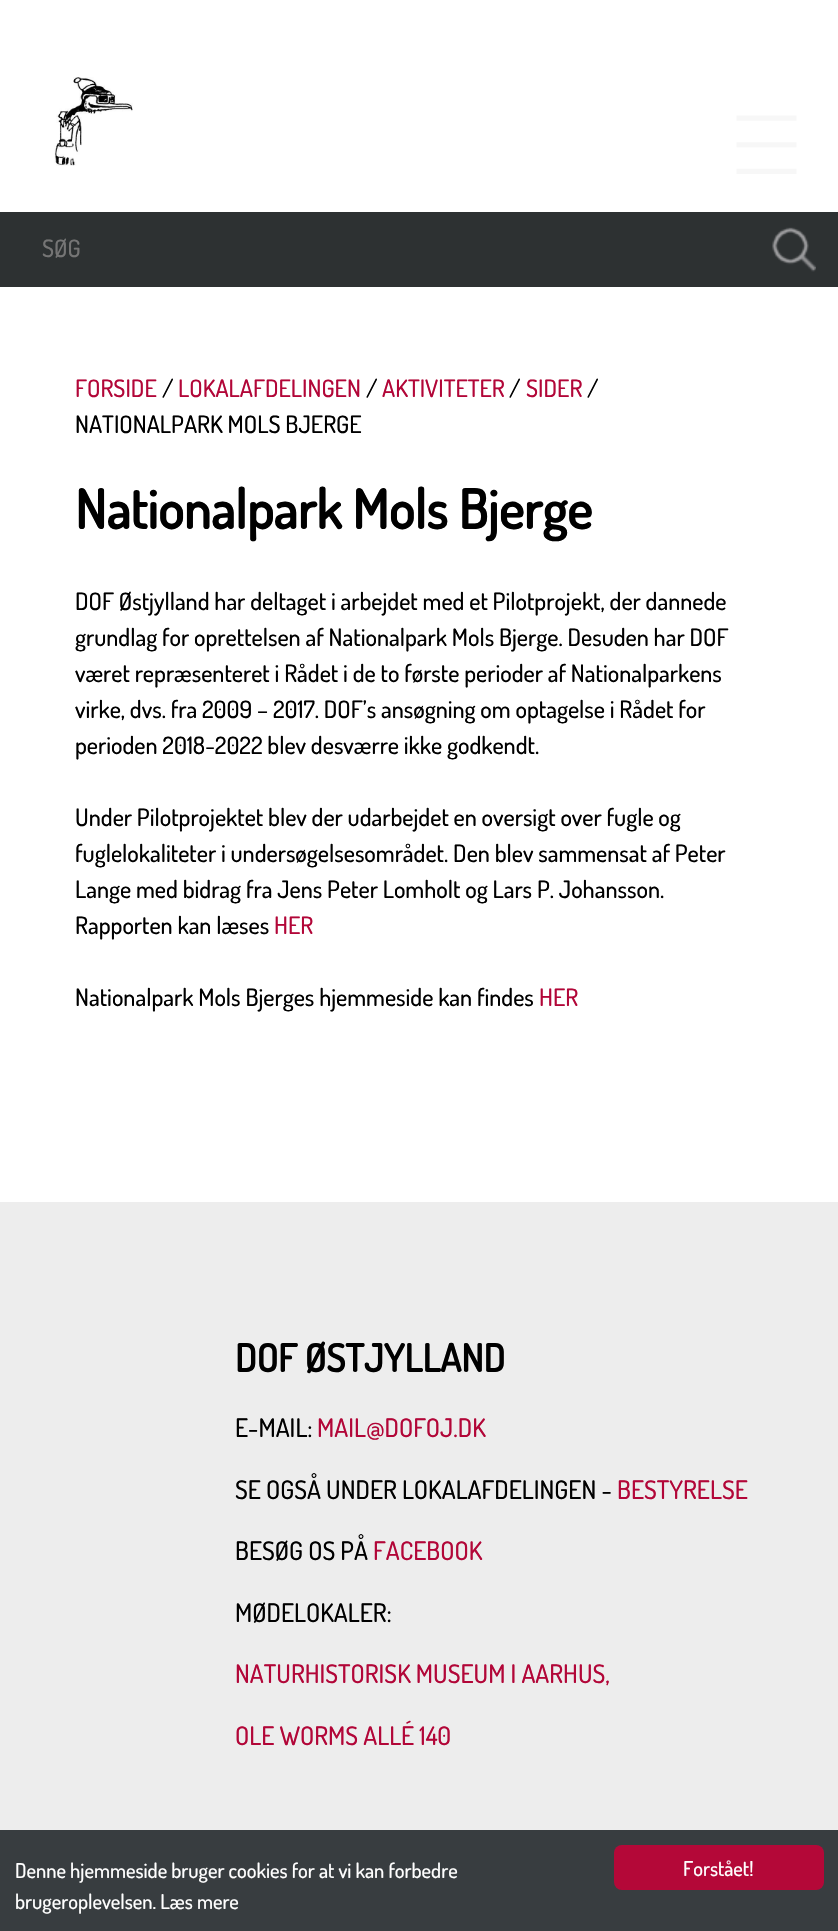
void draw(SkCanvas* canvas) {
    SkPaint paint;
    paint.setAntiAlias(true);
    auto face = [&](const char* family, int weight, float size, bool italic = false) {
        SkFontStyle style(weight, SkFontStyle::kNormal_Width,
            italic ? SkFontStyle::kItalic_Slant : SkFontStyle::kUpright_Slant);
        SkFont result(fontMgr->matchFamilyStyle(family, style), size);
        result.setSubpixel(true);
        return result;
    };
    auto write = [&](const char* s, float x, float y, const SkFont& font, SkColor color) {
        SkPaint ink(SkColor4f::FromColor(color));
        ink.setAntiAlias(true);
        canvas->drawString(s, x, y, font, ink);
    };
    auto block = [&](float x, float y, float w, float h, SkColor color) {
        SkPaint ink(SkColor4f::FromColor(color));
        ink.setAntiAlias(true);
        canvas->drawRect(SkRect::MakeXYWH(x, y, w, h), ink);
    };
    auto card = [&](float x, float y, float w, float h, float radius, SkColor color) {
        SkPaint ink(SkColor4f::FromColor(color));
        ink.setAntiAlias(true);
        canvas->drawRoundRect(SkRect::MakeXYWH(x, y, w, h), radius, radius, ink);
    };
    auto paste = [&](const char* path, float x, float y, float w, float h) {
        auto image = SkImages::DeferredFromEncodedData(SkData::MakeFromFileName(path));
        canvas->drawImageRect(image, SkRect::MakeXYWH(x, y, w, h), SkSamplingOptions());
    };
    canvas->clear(SK_ColorWHITE);
    paste("pic1.png", 54, 77, 79, 89);
    paste("pic2.png", 736, 115, 61, 59);
    block(0, 212, 838, 75, SkColorSetRGB(45, 49, 50));
    auto kFont1 = face("Dosis", 500, 24);
    write("SØG", 42, 257, kFont1, SkColorSetRGB(117, 117, 117));
    paste("pic3.png", 772, 227, 44, 45);
    write("FORSIDE", 75, 397, kFont1, SkColorSetRGB(178, 6, 56));
    write("/", 162, 397, kFont1, SK_ColorBLACK);
    write("LOKALAFDELINGEN", 178, 397, kFont1, SkColorSetRGB(178, 6, 56));
    write("/", 366, 397, kFont1, SK_ColorBLACK);
    write("AKTIVITETER", 382, 397, kFont1, SkColorSetRGB(178, 6, 56));
    write("/", 509, 397, kFont1, SK_ColorBLACK);
    write("SIDER", 526, 397, kFont1, SkColorSetRGB(178, 6, 56));
    write("/", 587, 397, kFont1, SK_ColorBLACK);
    write("NATIONALPARK MOLS BJERGE", 75, 433, kFont1, SK_ColorBLACK);
    auto kFont2 = face("Dosis", 700, 54);
    write("Nationalpark Mols Bjerge", 75, 529, kFont2, SK_ColorBLACK);
    write("DOF Østjylland har deltaget i arbejdet med et Pilotprojekt, der dannede", 75, 610, kFont1, SK_ColorBLACK);
    write("grundlag for oprettelsen af Nationalpark Mols Bjerge. Desuden har DOF", 75, 646, kFont1, SK_ColorBLACK);
    write("været repræsenteret i Rådet i de to første perioder af Nationalparkens", 75, 682, kFont1, SK_ColorBLACK);
    write("virke, dvs. fra 2009 – 2017. DOF’s ansøgning om optagelse i Rådet for", 75, 718, kFont1, SK_ColorBLACK);
    write("perioden 2018-2022 blev desværre ikke godkendt.", 75, 754, kFont1, SK_ColorBLACK);
    write("Under Pilotprojektet blev der udarbejdet en oversigt over fugle og", 75, 826, kFont1, SK_ColorBLACK);
    write("fuglelokaliteter i undersøgelsesområdet. Den blev sammensat af Peter", 75, 862, kFont1, SK_ColorBLACK);
    write("Lange med bidrag fra Jens Peter Lomholt og Lars P. Johansson.", 75, 898, kFont1, SK_ColorBLACK);
    write("Rapporten kan læses", 75, 934, kFont1, SK_ColorBLACK);
    write("HER", 274, 934, kFont1, SkColorSetRGB(178, 6, 56));
    write("Nationalpark Mols Bjerges hjemmeside kan findes", 75, 1006, kFont1, SK_ColorBLACK);
    write("HER", 539, 1006, kFont1, SkColorSetRGB(178, 6, 56));
    block(0, 1202, 838, 628, SkColorSetRGB(237, 237, 237));
    auto kFont3 = face("Dosis", 700, 38.25f);
    write("DOF ØSTJYLLAND", 235, 1372, kFont3, SK_ColorBLACK);
    auto kFont4 = face("Dosis", 500, 25.5f);
    write("E-MAIL:", 235, 1437, kFont4, SK_ColorBLACK);
    write("MAIL@DOFOJ.DK", 317, 1437, kFont4, SkColorSetRGB(178, 6, 56));
    write("SE OGSÅ UNDER LOKALAFDELINGEN -", 235, 1499, kFont4, SK_ColorBLACK);
    write("BESTYRELSE", 617, 1499, kFont4, SkColorSetRGB(178, 6, 56));
    write("BESØG OS PÅ", 235, 1560, kFont4, SK_ColorBLACK);
    write("FACEBOOK", 373, 1560, kFont4, SkColorSetRGB(178, 6, 56));
    write("MØDELOKALER:", 235, 1622, kFont4, SK_ColorBLACK);
    write("NATURHISTORISK MUSEUM I AARHUS,", 235, 1683, kFont4, SkColorSetRGB(178, 6, 56));
    write("OLE WORMS ALLÉ 140", 235, 1745, kFont4, SkColorSetRGB(178, 6, 56));
    block(0, 1830, 838, 101, SkColorSetRGB(56, 61, 64));
    auto kFont5 = face("Dosis", 500, 20.4f);
    write("Denne hjemmeside bruger cookies for at vi kan forbedre", 15, 1878, kFont5, SK_ColorWHITE);
    write("brugeroplevelsen. Læs mere", 15, 1909, kFont5, SK_ColorWHITE);
    card(614, 1845, 210, 45, 8, SkColorSetRGB(180, 8, 56));
    write("Forstået!", 683, 1876, kFont5, SK_ColorWHITE);
}
